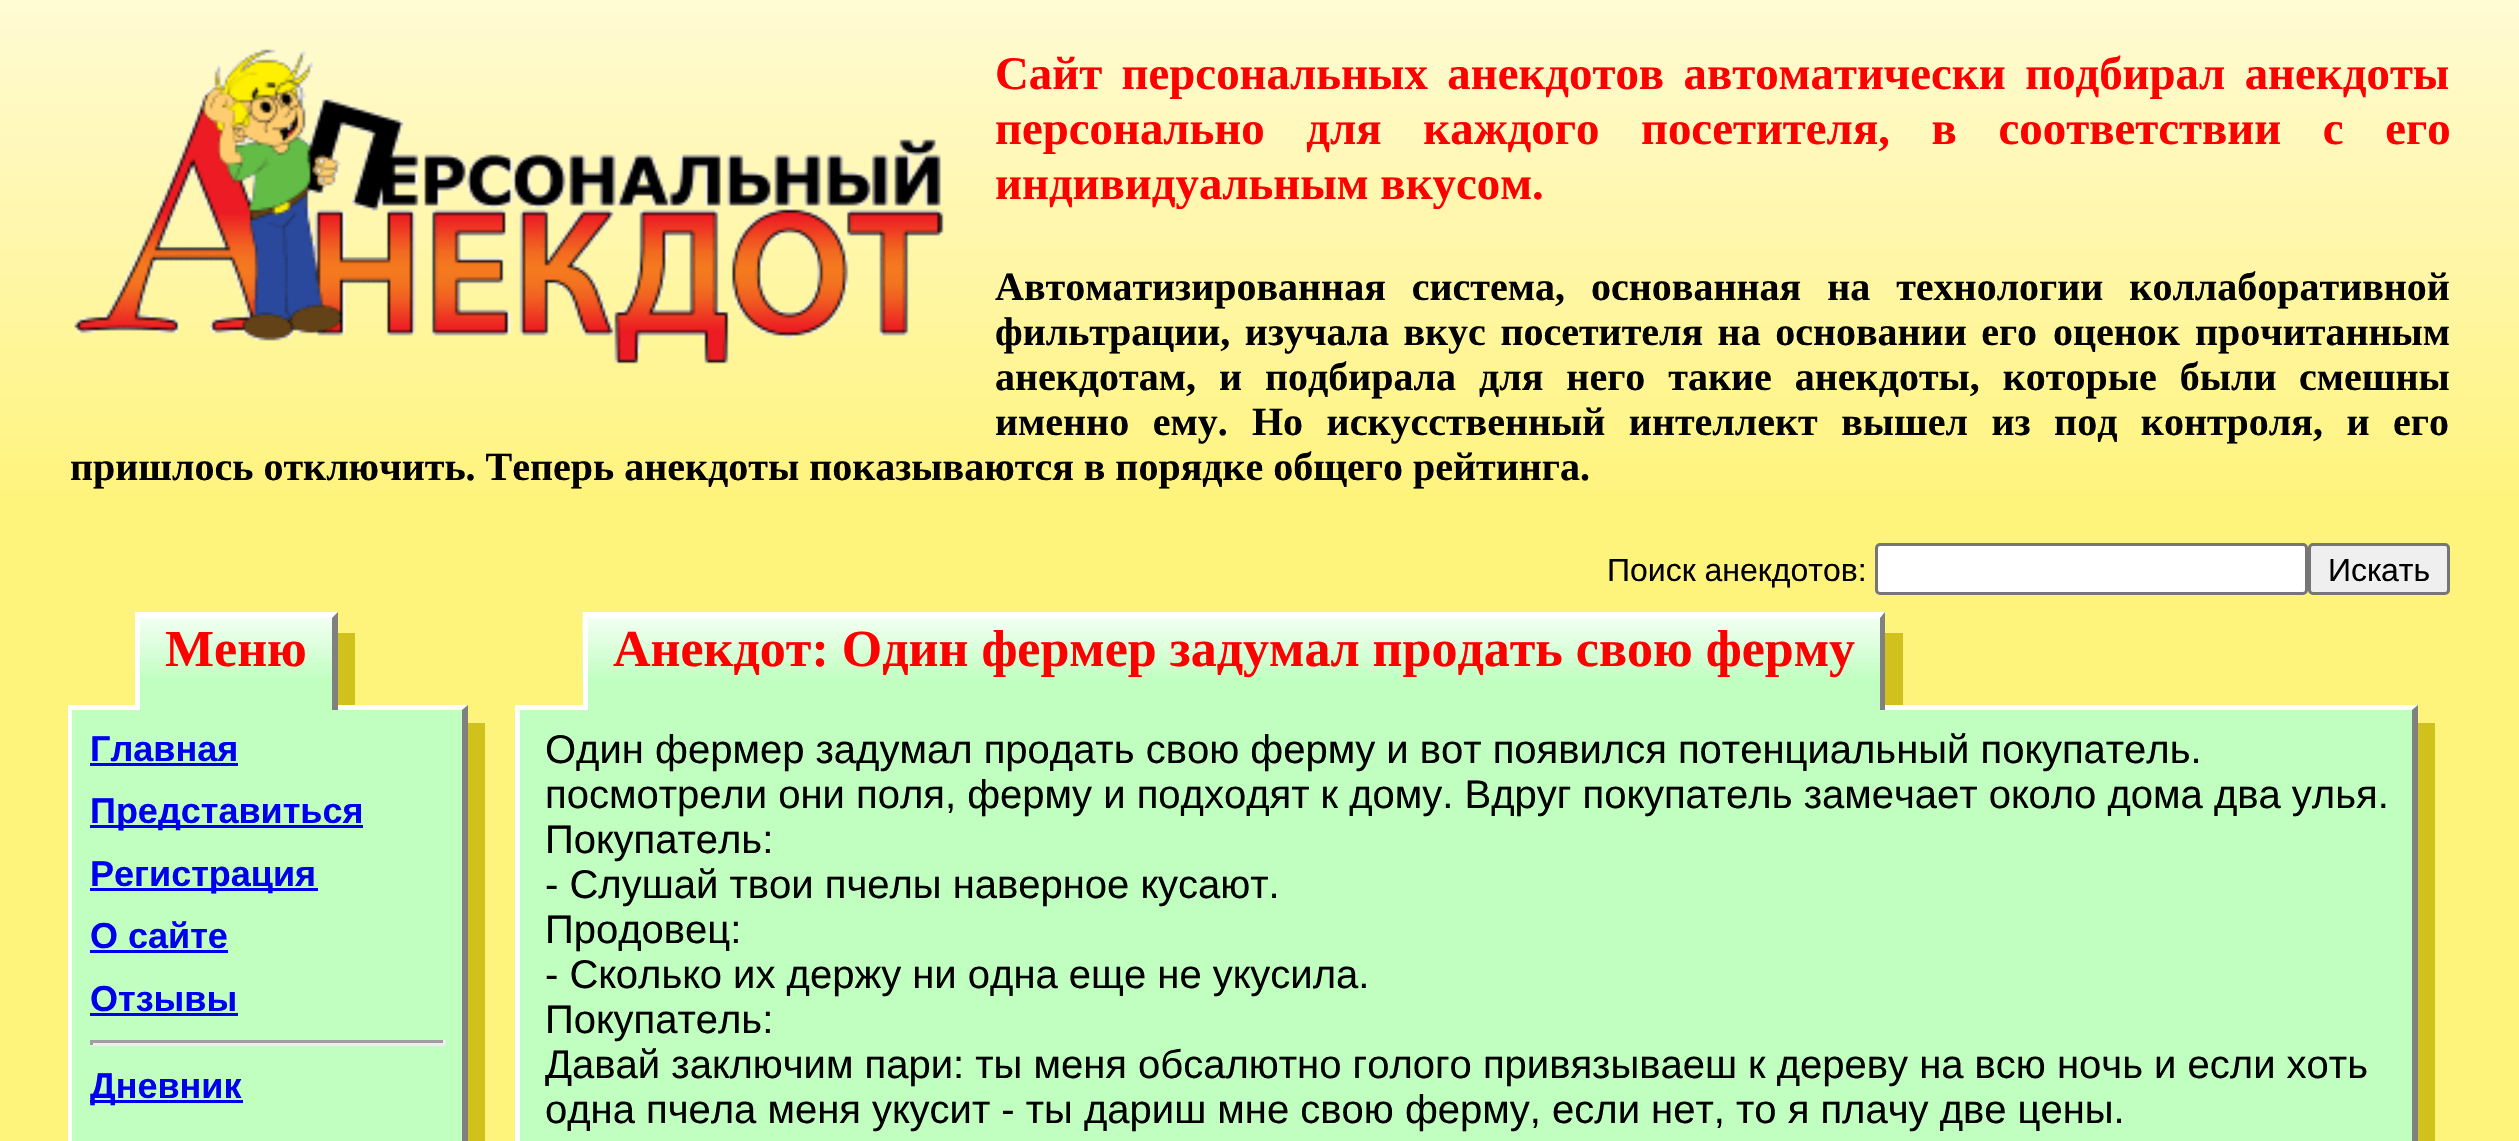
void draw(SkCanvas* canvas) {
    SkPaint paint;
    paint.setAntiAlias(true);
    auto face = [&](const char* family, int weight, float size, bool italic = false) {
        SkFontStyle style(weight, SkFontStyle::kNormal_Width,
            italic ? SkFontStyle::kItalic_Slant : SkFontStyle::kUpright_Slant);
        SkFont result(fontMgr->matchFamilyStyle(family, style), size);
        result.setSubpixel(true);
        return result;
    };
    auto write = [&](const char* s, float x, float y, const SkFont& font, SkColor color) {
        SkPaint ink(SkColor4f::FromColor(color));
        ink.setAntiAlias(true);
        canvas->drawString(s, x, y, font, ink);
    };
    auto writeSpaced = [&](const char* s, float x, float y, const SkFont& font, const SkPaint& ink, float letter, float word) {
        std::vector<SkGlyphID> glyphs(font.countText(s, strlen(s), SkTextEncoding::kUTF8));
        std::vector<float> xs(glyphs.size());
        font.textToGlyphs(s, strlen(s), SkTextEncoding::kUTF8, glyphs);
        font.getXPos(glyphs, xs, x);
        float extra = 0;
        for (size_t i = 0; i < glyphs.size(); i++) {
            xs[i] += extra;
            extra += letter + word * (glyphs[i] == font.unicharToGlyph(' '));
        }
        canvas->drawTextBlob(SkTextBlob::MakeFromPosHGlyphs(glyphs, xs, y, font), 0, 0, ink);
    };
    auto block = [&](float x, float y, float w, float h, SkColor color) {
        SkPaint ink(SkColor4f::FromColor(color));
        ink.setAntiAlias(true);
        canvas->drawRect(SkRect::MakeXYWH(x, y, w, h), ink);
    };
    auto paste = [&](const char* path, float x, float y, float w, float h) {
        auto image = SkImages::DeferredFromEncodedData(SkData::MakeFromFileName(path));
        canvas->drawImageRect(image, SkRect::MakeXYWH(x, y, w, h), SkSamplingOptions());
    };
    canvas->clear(SkColorSetRGB(255, 244, 123));
    paste("pic1.png", 0, 0, 2519, 490);
    paste("pic2.png", 74, 49, 870, 315);
    auto kFont1 = face("Liberation Serif", 700, 46.8f);
    paint.setColor(SkColorSetRGB(255, 0, 0));
    writeSpaced("Сайт персональных анекдотов автоматически подбирал анекдоты", 995, 89, kFont1, paint, 0, 7.75f);
    writeSpaced("персонально для каждого", 995, 144, kFont1, paint, 0, 30);
    writeSpaced("посетителя, в соответствии с его", 1641, 144, kFont1, paint, 0, 30);
    write("индивидуальным вкусом.", 995, 199, kFont1, SkColorSetRGB(255, 0, 0));
    auto kFont2 = face("Liberation Serif", 700, 40);
    paint.setColor(SK_ColorBLACK);
    writeSpaced("Автоматизированная система,", 995, 300, kFont2, paint, 0, 16);
    writeSpaced("основанная на технологии коллаборативной", 1591, 300, kFont2, paint, 0, 16);
    writeSpaced("фильтрации, изучала вкус посетителя на основании его", 995, 345, kFont2, paint, 0, 4.5f);
    writeSpaced("оценок прочитанным", 2053, 345, kFont2, paint, 0, 5);
    writeSpaced("анекдотам, и подбирала для него такие анекдоты, которые были", 995, 390, kFont2, paint, 0, 13);
    write("смешны", 2299, 390, kFont2, SK_ColorBLACK);
    writeSpaced("именно ему.", 995, 435, kFont2, paint, 0, 13.5f);
    writeSpaced("Но искусственный интеллект вышел из под контроля, и его", 1252, 435, kFont2, paint, 0, 13.5f);
    write("пришлось отключить. Теперь анекдоты показываются в порядке общего рейтинга.", 70, 480, kFont2, SK_ColorBLACK);
    auto kFont3 = face("Liberation Sans", 400, 32);
    write("Поиск анекдотов:", 1607, 581, kFont3, SK_ColorBLACK);
    paint.setColor(SK_ColorWHITE);
    canvas->drawRoundRect(SkRect::MakeXYWH(1876.5f, 544.5f, 430, 49), 3.5f, 3.5f, paint);
    paint.setStyle(SkPaint::kStroke_Style);
    paint.setStrokeWidth(3);
    paint.setColor(SkColorSetRGB(118, 118, 118));
    canvas->drawRoundRect(SkRect::MakeXYWH(1876.5f, 544.5f, 430, 49), 3.5f, 3.5f, paint);
    paint.setStyle(SkPaint::kFill_Style);
    paint.setColor(SkColorSetRGB(239, 239, 239));
    canvas->drawRoundRect(SkRect::MakeXYWH(2309.5f, 544.5f, 139, 49), 3.5f, 3.5f, paint);
    paint.setStyle(SkPaint::kStroke_Style);
    paint.setColor(SkColorSetRGB(118, 118, 118));
    canvas->drawRoundRect(SkRect::MakeXYWH(2309.5f, 544.5f, 139, 49), 3.5f, 3.5f, paint);
    write("Искать", 2328, 581, kFont3, SK_ColorBLACK);
    block(468, 723, 17, 418, SkColorSetRGB(208, 193, 28));
    block(68, 705, 400, 436, SkColorSetRGB(192, 255, 192));
    paint.setStyle(SkPaint::kFill_Style);
    paint.setColor(SK_ColorWHITE);
    canvas->drawPath(SkPathBuilder().moveTo(68, 705).lineTo(468, 705).lineTo(462, 710).lineTo(72, 710).close().detach(), paint);
    block(140, 613, 197, 97, SkColorSetRGB(192, 255, 192));
    paste("pic3.png", 140, 617, 193, 59);
    canvas->drawPath(SkPathBuilder().moveTo(135, 612).lineTo(338, 612).lineTo(332, 618).lineTo(140, 618).close().detach(), paint);
    paint.setColor(SkColorSetRGB(128, 128, 128));
    canvas->drawPath(SkPathBuilder().moveTo(338, 612).lineTo(338, 710).lineTo(332, 710).lineTo(332, 618).close().detach(), paint);
    block(135, 613, 5, 97, SK_ColorWHITE);
    auto kFont4 = face("Liberation Serif", 700, 52);
    write("Меню", 165, 666, kFont4, SkColorSetRGB(255, 0, 0));
    block(338, 633, 17, 72, SkColorSetRGB(208, 193, 28));
    canvas->drawPath(SkPathBuilder().moveTo(468, 705).lineTo(468, 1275).lineTo(462, 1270).lineTo(462, 710).close().detach(), paint);
    paint.setColor(SK_ColorWHITE);
    canvas->drawPath(SkPathBuilder().moveTo(68, 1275).lineTo(68, 705).lineTo(72, 710).lineTo(72, 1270).close().detach(), paint);
    auto kFont5 = face("Liberation Sans", 700, 36);
    write("Главная", 90, 761, kFont5, SkColorSetRGB(0, 0, 238));
    block(90, 763, 148, 3, SkColorSetRGB(0, 0, 238));
    block(90, 825, 273, 3, SkColorSetRGB(0, 0, 238));
    write("Представиться", 90, 823, kFont5, SkColorSetRGB(0, 0, 238));
    block(90, 888, 228, 3, SkColorSetRGB(0, 0, 238));
    write("Регистрация", 90, 886, kFont5, SkColorSetRGB(0, 0, 238));
    write("О сайте", 90, 948, kFont5, SkColorSetRGB(0, 0, 238));
    block(90, 950, 138, 3, SkColorSetRGB(0, 0, 238));
    write("Отзывы", 90, 1011, kFont5, SkColorSetRGB(0, 0, 238));
    block(90, 1013, 148, 3, SkColorSetRGB(0, 0, 238));
    block(90, 1040, 355, 3, SkColorSetRGB(159, 159, 159));
    block(443, 1040, 3, 5, SkColorSetRGB(238, 238, 238));
    block(90, 1043, 355, 3, SkColorSetRGB(238, 238, 238));
    block(90, 1040, 3, 5, SkColorSetRGB(159, 159, 159));
    block(90, 1100, 153, 3, SkColorSetRGB(0, 0, 238));
    write("Дневник", 90, 1098, kFont5, SkColorSetRGB(0, 0, 238));
    block(2418, 723, 17, 418, SkColorSetRGB(208, 193, 28));
    block(515, 705, 1903, 436, SkColorSetRGB(192, 255, 192));
    canvas->drawPath(SkPathBuilder().moveTo(515, 705).lineTo(2418, 705).lineTo(2412, 710).lineTo(520, 710).close().detach(), paint);
    block(588, 613, 1297, 97, SkColorSetRGB(192, 255, 192));
    paste("pic4.png", 582, 617, 1299, 66);
    canvas->drawPath(SkPathBuilder().moveTo(582, 612).lineTo(1885, 612).lineTo(1880, 618).lineTo(588, 618).close().detach(), paint);
    paint.setColor(SkColorSetRGB(128, 128, 128));
    canvas->drawPath(SkPathBuilder().moveTo(1885, 612).lineTo(1885, 710).lineTo(1880, 710).lineTo(1880, 618).close().detach(), paint);
    block(583, 613, 5, 97, SK_ColorWHITE);
    write("Анекдот: Один фермер задумал продать свою ферму", 613, 666, kFont4, SkColorSetRGB(255, 0, 0));
    block(1885, 633, 18, 72, SkColorSetRGB(208, 193, 28));
    canvas->drawPath(SkPathBuilder().moveTo(2418, 705).lineTo(2418, 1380).lineTo(2412, 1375).lineTo(2412, 710).close().detach(), paint);
    paint.setColor(SK_ColorWHITE);
    canvas->drawPath(SkPathBuilder().moveTo(515, 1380).lineTo(515, 705).lineTo(520, 710).lineTo(520, 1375).close().detach(), paint);
    auto kFont6 = face("Liberation Sans", 400, 40);
    write("Один фермер задумал продать свою ферму и вот появился потенциальный покупатель.", 545, 763, kFont6, SK_ColorBLACK);
    write("посмотрели они поля, ферму и подходят к дому. Вдруг покупатель замечает около дома два улья.", 545, 808, kFont6, SK_ColorBLACK);
    write("Покупатель:", 545, 853, kFont6, SK_ColorBLACK);
    write("- Слушай твои пчелы наверное кусают.", 545, 898, kFont6, SK_ColorBLACK);
    write("Продовец:", 545, 943, kFont6, SK_ColorBLACK);
    write("- Сколько их держу ни одна еще не укусила.", 545, 988, kFont6, SK_ColorBLACK);
    write("Покупатель:", 545, 1033, kFont6, SK_ColorBLACK);
    write("Давай заключим пари: ты меня обсалютно голого привязываеш к дереву на всю ночь и если хоть", 545, 1078, kFont6, SK_ColorBLACK);
    write("одна пчела меня укусит - ты дариш мне свою ферму, если нет, то я плачу две цены.", 545, 1123, kFont6, SK_ColorBLACK);
}
